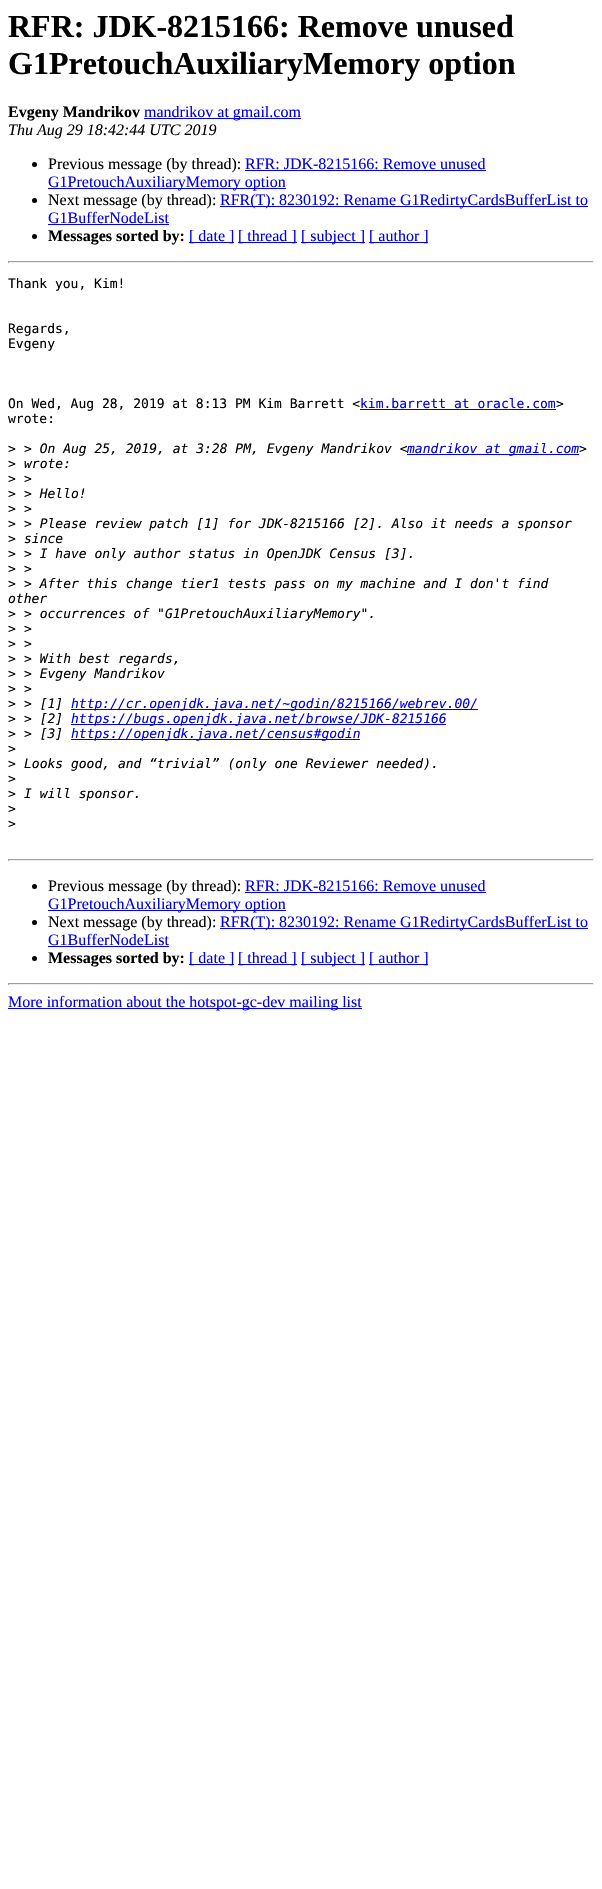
void draw(SkCanvas* canvas) {
    SkPaint paint;
    paint.setAntiAlias(true);
    auto face = [&](const char* family, int weight, float size, bool italic = false) {
        SkFontStyle style(weight, SkFontStyle::kNormal_Width,
            italic ? SkFontStyle::kItalic_Slant : SkFontStyle::kUpright_Slant);
        SkFont result(fontMgr->matchFamilyStyle(family, style), size);
        result.setSubpixel(true);
        return result;
    };
    auto write = [&](const char* s, float x, float y, const SkFont& font, SkColor color) {
        SkPaint ink(SkColor4f::FromColor(color));
        ink.setAntiAlias(true);
        canvas->drawString(s, x, y, font, ink);
    };
    auto block = [&](float x, float y, float w, float h, SkColor color) {
        SkPaint ink(SkColor4f::FromColor(color));
        ink.setAntiAlias(true);
        canvas->drawRect(SkRect::MakeXYWH(x, y, w, h), ink);
    };
    canvas->clear(SK_ColorWHITE);
    auto kFont1 = face("Liberation Serif", 700, 32);
    write("RFR: JDK-8215166: Remove unused", 8, 37, kFont1, SK_ColorBLACK);
    write("G1PretouchAuxiliaryMemory option", 8, 74, kFont1, SK_ColorBLACK);
    auto kFont2 = face("Liberation Serif", 700, 16);
    write("Evgeny Mandrikov", 8, 117, kFont2, SK_ColorBLACK);
    block(144, 118, 157, 1, SkColorSetRGB(0, 0, 238));
    auto kFont3 = face("Liberation Serif", 400, 16);
    write("mandrikov at gmail.com", 144, 117, kFont3, SkColorSetRGB(0, 0, 238));
    auto kFont4 = face("Liberation Serif", 400, 16, true);
    write("Thu Aug 29 18:42:44 UTC 2019", 8, 135, kFont4, SK_ColorBLACK);
    paint.setColor(SK_ColorBLACK);
    canvas->drawCircle(34.5f, 164.5f, 2.5f, paint);
    write("Previous message (by thread):", 48, 169, kFont3, SK_ColorBLACK);
    write("RFR: JDK-8215166: Remove unused", 245, 169, kFont3, SkColorSetRGB(0, 0, 238));
    block(245, 170, 241, 1, SkColorSetRGB(0, 0, 238));
    block(48, 188, 238, 1, SkColorSetRGB(0, 0, 238));
    write("G1PretouchAuxiliaryMemory option", 48, 187, kFont3, SkColorSetRGB(0, 0, 238));
    canvas->drawCircle(34.5f, 200.5f, 2.5f, paint);
    write("Next message (by thread):", 48, 205, kFont3, SK_ColorBLACK);
    block(220, 206, 368, 1, SkColorSetRGB(0, 0, 238));
    write("RFR(T): 8230192: Rename G1RedirtyCardsBufferList to", 220, 205, kFont3, SkColorSetRGB(0, 0, 238));
    write("G1BufferNodeList", 48, 223, kFont3, SkColorSetRGB(0, 0, 238));
    block(48, 224, 121, 1, SkColorSetRGB(0, 0, 238));
    canvas->drawCircle(34.5f, 236.5f, 2.5f, paint);
    write("Messages sorted by:", 48, 241, kFont2, SK_ColorBLACK);
    block(189, 242, 45, 1, SkColorSetRGB(0, 0, 238));
    write("[ date ]", 189, 241, kFont3, SkColorSetRGB(0, 0, 238));
    block(238, 242, 59, 1, SkColorSetRGB(0, 0, 238));
    write("[ thread ]", 238, 241, kFont3, SkColorSetRGB(0, 0, 238));
    block(301, 242, 64, 1, SkColorSetRGB(0, 0, 238));
    write("[ subject ]", 301, 241, kFont3, SkColorSetRGB(0, 0, 238));
    block(369, 242, 59, 1, SkColorSetRGB(0, 0, 238));
    write("[ author ]", 369, 241, kFont3, SkColorSetRGB(0, 0, 238));
    block(8, 261, 586, 1, SkColorSetRGB(159, 159, 159));
    block(593, 261, 1, 2, SkColorSetRGB(238, 238, 238));
    block(8, 262, 586, 1, SkColorSetRGB(238, 238, 238));
    block(8, 261, 1, 2, SkColorSetRGB(159, 159, 159));
    auto kFont5 = face("DejaVu Sans Mono", 400, 13);
    write("Thank you, Kim!", 8, 288, kFont5, SK_ColorBLACK);
    write("Regards,", 8, 333, kFont5, SK_ColorBLACK);
    write("Evgeny", 8, 348, kFont5, SK_ColorBLACK);
    write("On Wed, Aug 28, 2019 at 8:13 PM Kim Barrett <", 8, 408, kFont5, SK_ColorBLACK);
    write("kim.barrett at oracle.com", 360, 408, kFont5, SkColorSetRGB(0, 0, 238));
    block(360, 409, 196, 1, SkColorSetRGB(0, 0, 238));
    write(">", 556, 408, kFont5, SK_ColorBLACK);
    write("wrote:", 8, 423, kFont5, SK_ColorBLACK);
    write(">", 8, 453, kFont5, SK_ColorBLACK);
    auto kFont6 = face("DejaVu Sans Mono", 400, 13, true);
    write("> On Aug 25, 2019, at 3:28 PM, Evgeny Mandrikov <", 24, 453, kFont6, SK_ColorBLACK);
    block(407, 454, 172, 1, SkColorSetRGB(0, 0, 238));
    write("mandrikov at gmail.com", 407, 453, kFont6, SkColorSetRGB(0, 0, 238));
    write(">", 579, 453, kFont6, SK_ColorBLACK);
    write(">", 8, 468, kFont5, SK_ColorBLACK);
    write("wrote:", 24, 468, kFont6, SK_ColorBLACK);
    write(">", 8, 483, kFont5, SK_ColorBLACK);
    write(">", 24, 483, kFont6, SK_ColorBLACK);
    write(">", 8, 498, kFont5, SK_ColorBLACK);
    write("> Hello!", 24, 498, kFont6, SK_ColorBLACK);
    write(">", 8, 513, kFont5, SK_ColorBLACK);
    write(">", 24, 513, kFont6, SK_ColorBLACK);
    write(">", 8, 528, kFont5, SK_ColorBLACK);
    write("> Please review patch [1] for JDK-8215166 [2]. Also it needs a sponsor", 24, 528, kFont6, SK_ColorBLACK);
    write(">", 8, 543, kFont5, SK_ColorBLACK);
    write("since", 24, 543, kFont6, SK_ColorBLACK);
    write(">", 8, 558, kFont5, SK_ColorBLACK);
    write("> I have only author status in OpenJDK Census [3].", 24, 558, kFont6, SK_ColorBLACK);
    write(">", 8, 573, kFont5, SK_ColorBLACK);
    write(">", 24, 573, kFont6, SK_ColorBLACK);
    write(">", 8, 588, kFont5, SK_ColorBLACK);
    write("> After this change tier1 tests pass on my machine and I don't find", 24, 588, kFont6, SK_ColorBLACK);
    write("other", 8, 603, kFont6, SK_ColorBLACK);
    write(">", 8, 618, kFont5, SK_ColorBLACK);
    write("> occurrences of \"G1PretouchAuxiliaryMemory\".", 24, 618, kFont6, SK_ColorBLACK);
    write(">", 8, 633, kFont5, SK_ColorBLACK);
    write(">", 24, 633, kFont6, SK_ColorBLACK);
    write(">", 8, 648, kFont5, SK_ColorBLACK);
    write(">", 24, 648, kFont6, SK_ColorBLACK);
    write(">", 8, 663, kFont5, SK_ColorBLACK);
    write("> With best regards,", 24, 663, kFont6, SK_ColorBLACK);
    write(">", 8, 678, kFont5, SK_ColorBLACK);
    write("> Evgeny Mandrikov", 24, 678, kFont6, SK_ColorBLACK);
    write(">", 8, 693, kFont5, SK_ColorBLACK);
    write(">", 24, 693, kFont6, SK_ColorBLACK);
    write(">", 8, 708, kFont5, SK_ColorBLACK);
    write("> [1]", 24, 708, kFont6, SK_ColorBLACK);
    block(71, 709, 407, 1, SkColorSetRGB(0, 0, 238));
    write("http://cr.openjdk.java.net/~godin/8215166/webrev.00/", 71, 708, kFont6, SkColorSetRGB(0, 0, 238));
    write(">", 8, 723, kFont5, SK_ColorBLACK);
    write("> [2]", 24, 723, kFont6, SK_ColorBLACK);
    block(71, 724, 375, 1, SkColorSetRGB(0, 0, 238));
    write("https://bugs.openjdk.java.net/browse/JDK-8215166", 71, 723, kFont6, SkColorSetRGB(0, 0, 238));
    write(">", 8, 738, kFont5, SK_ColorBLACK);
    write("> [3]", 24, 738, kFont6, SK_ColorBLACK);
    block(71, 739, 289, 1, SkColorSetRGB(0, 0, 238));
    write("https://openjdk.java.net/census#godin", 71, 738, kFont6, SkColorSetRGB(0, 0, 238));
    write(">", 8, 753, kFont5, SK_ColorBLACK);
    write(">", 8, 768, kFont5, SK_ColorBLACK);
    write("Looks good, and “trivial” (only one Reviewer needed).", 24, 768, kFont6, SK_ColorBLACK);
    write(">", 8, 783, kFont5, SK_ColorBLACK);
    write(">", 8, 798, kFont5, SK_ColorBLACK);
    write("I will sponsor.", 24, 798, kFont6, SK_ColorBLACK);
    write(">", 8, 813, kFont5, SK_ColorBLACK);
    write(">", 8, 828, kFont5, SK_ColorBLACK);
    block(8, 859, 586, 1, SkColorSetRGB(159, 159, 159));
    block(593, 859, 1, 2, SkColorSetRGB(238, 238, 238));
    block(8, 860, 586, 1, SkColorSetRGB(238, 238, 238));
    block(8, 859, 1, 2, SkColorSetRGB(159, 159, 159));
    canvas->drawCircle(34.5f, 886.5f, 2.5f, paint);
    write("Previous message (by thread):", 48, 891, kFont3, SK_ColorBLACK);
    write("RFR: JDK-8215166: Remove unused", 245, 891, kFont3, SkColorSetRGB(0, 0, 238));
    block(245, 892, 241, 1, SkColorSetRGB(0, 0, 238));
    block(48, 910, 238, 1, SkColorSetRGB(0, 0, 238));
    write("G1PretouchAuxiliaryMemory option", 48, 909, kFont3, SkColorSetRGB(0, 0, 238));
    canvas->drawCircle(34.5f, 922.5f, 2.5f, paint);
    write("Next message (by thread):", 48, 927, kFont3, SK_ColorBLACK);
    block(220, 928, 368, 1, SkColorSetRGB(0, 0, 238));
    write("RFR(T): 8230192: Rename G1RedirtyCardsBufferList to", 220, 927, kFont3, SkColorSetRGB(0, 0, 238));
    write("G1BufferNodeList", 48, 945, kFont3, SkColorSetRGB(0, 0, 238));
    block(48, 946, 121, 1, SkColorSetRGB(0, 0, 238));
    canvas->drawCircle(34.5f, 958.5f, 2.5f, paint);
    write("Messages sorted by:", 48, 963, kFont2, SK_ColorBLACK);
    block(189, 964, 45, 1, SkColorSetRGB(0, 0, 238));
    write("[ date ]", 189, 963, kFont3, SkColorSetRGB(0, 0, 238));
    block(238, 964, 59, 1, SkColorSetRGB(0, 0, 238));
    write("[ thread ]", 238, 963, kFont3, SkColorSetRGB(0, 0, 238));
    block(301, 964, 64, 1, SkColorSetRGB(0, 0, 238));
    write("[ subject ]", 301, 963, kFont3, SkColorSetRGB(0, 0, 238));
    block(369, 964, 59, 1, SkColorSetRGB(0, 0, 238));
    write("[ author ]", 369, 963, kFont3, SkColorSetRGB(0, 0, 238));
    block(8, 983, 586, 1, SkColorSetRGB(159, 159, 159));
    block(593, 983, 1, 2, SkColorSetRGB(238, 238, 238));
    block(8, 984, 586, 1, SkColorSetRGB(238, 238, 238));
    block(8, 983, 1, 2, SkColorSetRGB(159, 159, 159));
    block(8, 1008, 354, 1, SkColorSetRGB(0, 0, 238));
    write("More information about the hotspot-gc-dev mailing list", 8, 1007, kFont3, SkColorSetRGB(0, 0, 238));
}
